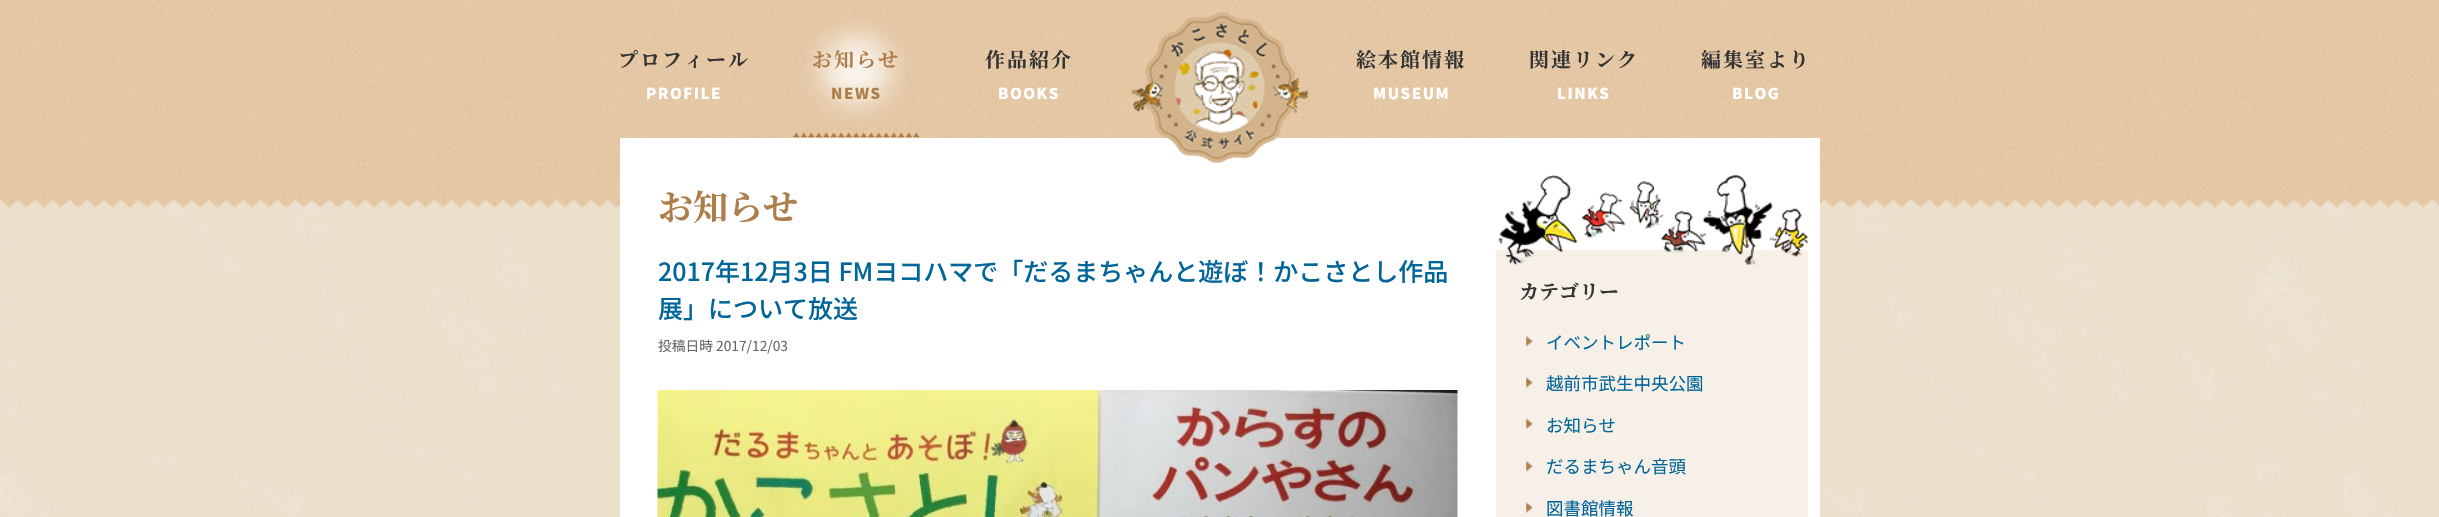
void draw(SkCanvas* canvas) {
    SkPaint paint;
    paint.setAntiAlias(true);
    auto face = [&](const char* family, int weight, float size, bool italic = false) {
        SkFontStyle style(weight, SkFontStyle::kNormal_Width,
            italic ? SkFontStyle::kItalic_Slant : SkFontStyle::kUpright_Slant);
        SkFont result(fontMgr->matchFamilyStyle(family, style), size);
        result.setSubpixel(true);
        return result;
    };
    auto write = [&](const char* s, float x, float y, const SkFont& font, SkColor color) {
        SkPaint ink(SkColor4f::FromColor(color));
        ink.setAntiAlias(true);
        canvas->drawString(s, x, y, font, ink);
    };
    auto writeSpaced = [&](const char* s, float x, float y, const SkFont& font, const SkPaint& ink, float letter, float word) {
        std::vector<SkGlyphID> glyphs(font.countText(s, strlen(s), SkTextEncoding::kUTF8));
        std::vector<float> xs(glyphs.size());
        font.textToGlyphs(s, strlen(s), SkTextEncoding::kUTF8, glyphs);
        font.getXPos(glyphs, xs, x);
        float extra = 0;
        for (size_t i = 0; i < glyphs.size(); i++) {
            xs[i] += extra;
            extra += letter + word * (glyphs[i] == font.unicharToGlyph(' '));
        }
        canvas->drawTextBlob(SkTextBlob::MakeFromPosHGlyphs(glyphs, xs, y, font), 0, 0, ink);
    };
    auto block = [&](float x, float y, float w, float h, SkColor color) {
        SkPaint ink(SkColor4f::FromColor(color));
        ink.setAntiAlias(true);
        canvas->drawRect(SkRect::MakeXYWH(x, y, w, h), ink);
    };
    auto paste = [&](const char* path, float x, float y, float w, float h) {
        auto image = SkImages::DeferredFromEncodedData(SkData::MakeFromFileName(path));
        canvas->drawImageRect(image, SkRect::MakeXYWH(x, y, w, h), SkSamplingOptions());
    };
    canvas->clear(SK_ColorWHITE);
    paste("pic1.png", 0, 199, 2439, 318);
    paste("pic2.png", 0, 0, 2439, 208);
    auto kFont1 = face("Noto Serif JP", 200, 20);
    paint.setColor(SkColorSetRGB(51, 51, 51));
    writeSpaced("プロフィール", 618, 67, kFont1, paint, 2, 0);
    auto kFont2 = face("Noto Sans JP", 900, 15);
    paint.setColor(SK_ColorWHITE);
    writeSpaced("PROFILE", 646, 99, kFont2, paint, 1.5f, 0);
    paste("pic3.png", 793, 18, 127, 120);
    paint.setColor(SkColorSetRGB(173, 126, 76));
    writeSpaced("お知らせ", 812, 67, kFont1, paint, 2, 0);
    writeSpaced("NEWS", 831, 99, kFont2, paint, 1.5f, 0);
    paint.setColor(SkColorSetRGB(51, 51, 51));
    writeSpaced("作品紹介", 985, 67, kFont1, paint, 2, 0);
    paint.setColor(SK_ColorWHITE);
    writeSpaced("BOOKS", 998, 99, kFont2, paint, 1.5f, 0);
    block(620, 138, 1200, 379, SK_ColorWHITE);
    paste("pic4.png", 1131, 12, 178, 151);
    paste("pic5.png", 1132, 12, 176, 151);
    paint.setColor(SkColorSetRGB(51, 51, 51));
    writeSpaced("絵本館情報", 1356, 67, kFont1, paint, 2, 0);
    paint.setColor(SK_ColorWHITE);
    writeSpaced("MUSEUM", 1373, 99, kFont2, paint, 1.5f, 0);
    paint.setColor(SkColorSetRGB(51, 51, 51));
    writeSpaced("関連リンク", 1529, 67, kFont1, paint, 2, 0);
    paint.setColor(SK_ColorWHITE);
    writeSpaced("LINKS", 1557, 99, kFont2, paint, 1.5f, 0);
    paint.setColor(SkColorSetRGB(51, 51, 51));
    writeSpaced("編集室より", 1701, 67, kFont1, paint, 2, 0);
    paint.setColor(SK_ColorWHITE);
    writeSpaced("BLOG", 1732, 99, kFont2, paint, 1.5f, 0);
    auto kFont3 = face("Noto Serif JP", 200, 35);
    write("お知らせ", 658, 220, kFont3, SkColorSetRGB(173, 126, 76));
    auto kFont4 = face("Noto Sans JP", 500, 25);
    write("2017年12月3日 FMヨコハマで「だるまちゃんと遊ぼ！かこさとし作品", 658, 281, kFont4, SkColorSetRGB(0, 102, 153));
    write("展」について放送", 658, 318, kFont4, SkColorSetRGB(0, 102, 153));
    auto kFont5 = face("Noto Sans JP", 400, 13.75f);
    write("投稿日時 2017/12/03", 658, 351, kFont5, SkColorSetRGB(102, 102, 102));
    paste("pic6.png", 657, 390, 801, 127);
    block(1496, 250, 312, 267, SkColorSetRGB(246, 240, 232));
    paste("pic7.png", 1498, 175, 310, 90);
    write("カテゴリー", 1519, 299, kFont1, SkColorSetRGB(51, 51, 51));
    paste("pic8.png", 1526, 336, 7, 11);
    auto kFont6 = face("Noto Sans JP", 400, 17.5f);
    write("イベントレポート", 1546, 349, kFont6, SkColorSetRGB(0, 102, 153));
    paste("pic9.png", 1526, 377, 7, 11);
    write("越前市武生中央公園", 1546, 390, kFont6, SkColorSetRGB(0, 102, 153));
    paste("pic10.png", 1526, 418, 7, 11);
    write("お知らせ", 1546, 432, kFont6, SkColorSetRGB(0, 102, 153));
    paste("pic8.png", 1526, 461, 7, 11);
    write("だるまちゃん音頭", 1546, 473, kFont6, SkColorSetRGB(0, 102, 153));
    paste("pic9.png", 1526, 502, 7, 11);
    write("図書館情報", 1546, 515, kFont6, SkColorSetRGB(0, 102, 153));
}
